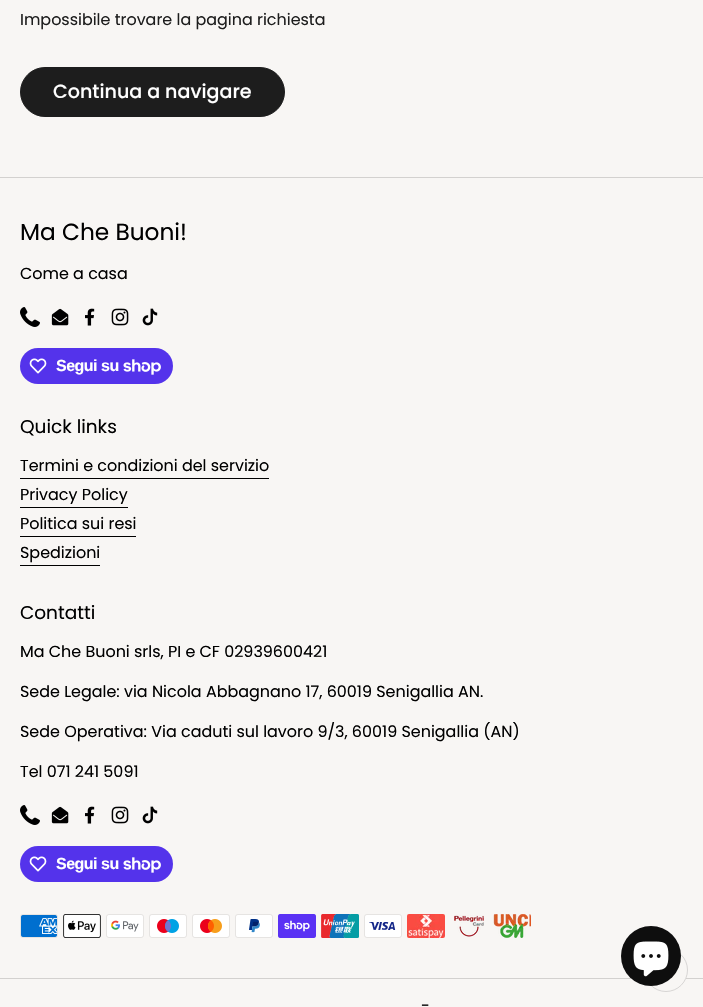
void draw(SkCanvas* canvas) {
    SkPaint paint;
    paint.setAntiAlias(true);
    auto face = [&](const char* family, int weight, float size, bool italic = false) {
        SkFontStyle style(weight, SkFontStyle::kNormal_Width,
            italic ? SkFontStyle::kItalic_Slant : SkFontStyle::kUpright_Slant);
        SkFont result(fontMgr->matchFamilyStyle(family, style), size);
        result.setSubpixel(true);
        return result;
    };
    auto write = [&](const char* s, float x, float y, const SkFont& font, SkColor color) {
        SkPaint ink(SkColor4f::FromColor(color));
        ink.setAntiAlias(true);
        canvas->drawString(s, x, y, font, ink);
    };
    auto writeSpaced = [&](const char* s, float x, float y, const SkFont& font, const SkPaint& ink, float letter, float word) {
        std::vector<SkGlyphID> glyphs(font.countText(s, strlen(s), SkTextEncoding::kUTF8));
        std::vector<float> xs(glyphs.size());
        font.textToGlyphs(s, strlen(s), SkTextEncoding::kUTF8, glyphs);
        font.getXPos(glyphs, xs, x);
        float extra = 0;
        for (size_t i = 0; i < glyphs.size(); i++) {
            xs[i] += extra;
            extra += letter + word * (glyphs[i] == font.unicharToGlyph(' '));
        }
        canvas->drawTextBlob(SkTextBlob::MakeFromPosHGlyphs(glyphs, xs, y, font), 0, 0, ink);
    };
    auto block = [&](float x, float y, float w, float h, SkColor color) {
        SkPaint ink(SkColor4f::FromColor(color));
        ink.setAntiAlias(true);
        canvas->drawRect(SkRect::MakeXYWH(x, y, w, h), ink);
    };
    auto card = [&](float x, float y, float w, float h, float radius, SkColor color) {
        SkPaint ink(SkColor4f::FromColor(color));
        ink.setAntiAlias(true);
        canvas->drawRoundRect(SkRect::MakeXYWH(x, y, w, h), radius, radius, ink);
    };
    auto paste = [&](const char* path, float x, float y, float w, float h) {
        auto image = SkImages::DeferredFromEncodedData(SkData::MakeFromFileName(path));
        canvas->drawImageRect(image, SkRect::MakeXYWH(x, y, w, h), SkSamplingOptions());
    };
    canvas->clear(SkColorSetRGB(248, 246, 244));
    auto kFont1 = face("Poppins", 400, 15.95f);
    write("Impossibile trovare la pagina richiesta", 20, 25, kFont1, SkColorSetRGB(29, 29, 29));
    paint.setColor(SkColorSetRGB(29, 29, 29));
    canvas->drawRoundRect(SkRect::MakeXYWH(20.5f, 67.5f, 264, 49), 24.5f, 24.5f, paint);
    paint.setStyle(SkPaint::kStroke_Style);
    paint.setStrokeWidth(1);
    canvas->drawRoundRect(SkRect::MakeXYWH(20.5f, 67.5f, 264, 49), 24.5f, 24.5f, paint);
    auto kFont2 = face("Poppins", 500, 19.1f);
    write("Continua a navigare", 53, 98, kFont2, SK_ColorWHITE);
    block(0, 177, 703, 1, SkColorSetRGB(211, 209, 207));
    auto kFont3 = face("Poppins", 400, 23.25f);
    write("Ma Che Buoni!", 20, 240, kFont3, SK_ColorBLACK);
    write("Come a casa", 20, 279, kFont1, SK_ColorBLACK);
    paste("pic1.png", 20, 307, 20, 20);
    paste("pic2.png", 51, 308, 18, 18);
    paste("pic3.png", 85, 308, 10, 18);
    paste("pic4.png", 111, 308, 18, 18);
    paste("pic5.png", 142, 308, 16, 18);
    card(20, 348, 153, 36, 18, SkColorSetRGB(84, 51, 235));
    paste("pic6.png", 29, 358, 18, 16);
    auto kFont4 = face("Liberation Sans", 700, 16);
    paint.setStyle(SkPaint::kFill_Style);
    paint.setColor(SK_ColorWHITE);
    writeSpaced("Segui su", 56, 371, kFont4, paint, -0.5f, 0);
    paste("pic7.png", 123, 359, 38, 16);
    auto kFont5 = face("Poppins", 400, 18.5f);
    write("Quick links", 20, 433, kFont5, SK_ColorBLACK);
    write("Termini e condizioni del servizio", 20, 471, kFont1, SK_ColorBLACK);
    block(20, 478, 249, 1, SK_ColorBLACK);
    write("Privacy Policy", 20, 500, kFont1, SK_ColorBLACK);
    block(20, 507, 108, 1, SK_ColorBLACK);
    write("Politica sui resi", 20, 529, kFont1, SK_ColorBLACK);
    block(20, 536, 116, 1, SK_ColorBLACK);
    write("Spedizioni", 20, 558, kFont1, SK_ColorBLACK);
    block(20, 565, 80, 1, SK_ColorBLACK);
    write("Contatti", 20, 619, kFont5, SK_ColorBLACK);
    write("Ma Che Buoni srls, PI e CF 02939600421", 20, 657, kFont1, SK_ColorBLACK);
    write("Sede Legale: via Nicola Abbagnano 17, 60019 Senigallia AN.", 20, 697, kFont1, SK_ColorBLACK);
    write("Sede Operativa: Via caduti sul lavoro 9/3, 60019 Senigallia (AN)", 20, 737, kFont1, SK_ColorBLACK);
    write("Tel 071 241 5091", 20, 777, kFont1, SK_ColorBLACK);
    paste("pic1.png", 20, 805, 20, 20);
    paste("pic2.png", 51, 806, 18, 18);
    paste("pic3.png", 85, 806, 10, 18);
    paste("pic4.png", 111, 806, 18, 18);
    paste("pic5.png", 142, 806, 16, 18);
    card(20, 846, 153, 36, 18, SkColorSetRGB(84, 51, 235));
    paste("pic6.png", 29, 856, 18, 16);
    writeSpaced("Segui su", 56, 869, kFont4, paint, -0.5f, 0);
    paste("pic7.png", 123, 857, 38, 16);
    paste("pic8.png", 20, 914, 38, 24);
    paste("pic9.png", 63, 914, 38, 24);
    paste("pic10.png", 106, 914, 38, 24);
    paste("pic11.png", 149, 914, 38, 24);
    paste("pic12.png", 192, 914, 38, 24);
    paste("pic13.png", 235, 914, 38, 24);
    paste("pic14.png", 278, 914, 38, 24);
    paste("pic15.png", 321, 914, 38, 24);
    paste("pic16.png", 364, 914, 38, 24);
    paste("pic17.png", 407, 914, 38, 24);
    paste("pic18.png", 454, 915, 30, 22);
    paste("pic19.png", 493, 914, 38, 24);
    block(0, 978, 703, 1, SkColorSetRGB(211, 209, 207));
    write("-", 421, 1011, kFont1, SK_ColorBLACK);
    paint.setColor(SkColorSetRGB(248, 246, 244));
    canvas->drawCircle(666, 970, 21.5f, paint);
    paint.setStyle(SkPaint::kStroke_Style);
    paint.setColor(SkColorSetRGB(215, 213, 212));
    canvas->drawCircle(666, 970, 21.5f, paint);
    paint.setStyle(SkPaint::kFill_Style);
    paint.setColor(SkColorSetRGB(14, 14, 14));
    canvas->drawCircle(651, 956, 30, paint);
    paste("pic20.png", 633, 941, 36, 36);
}
